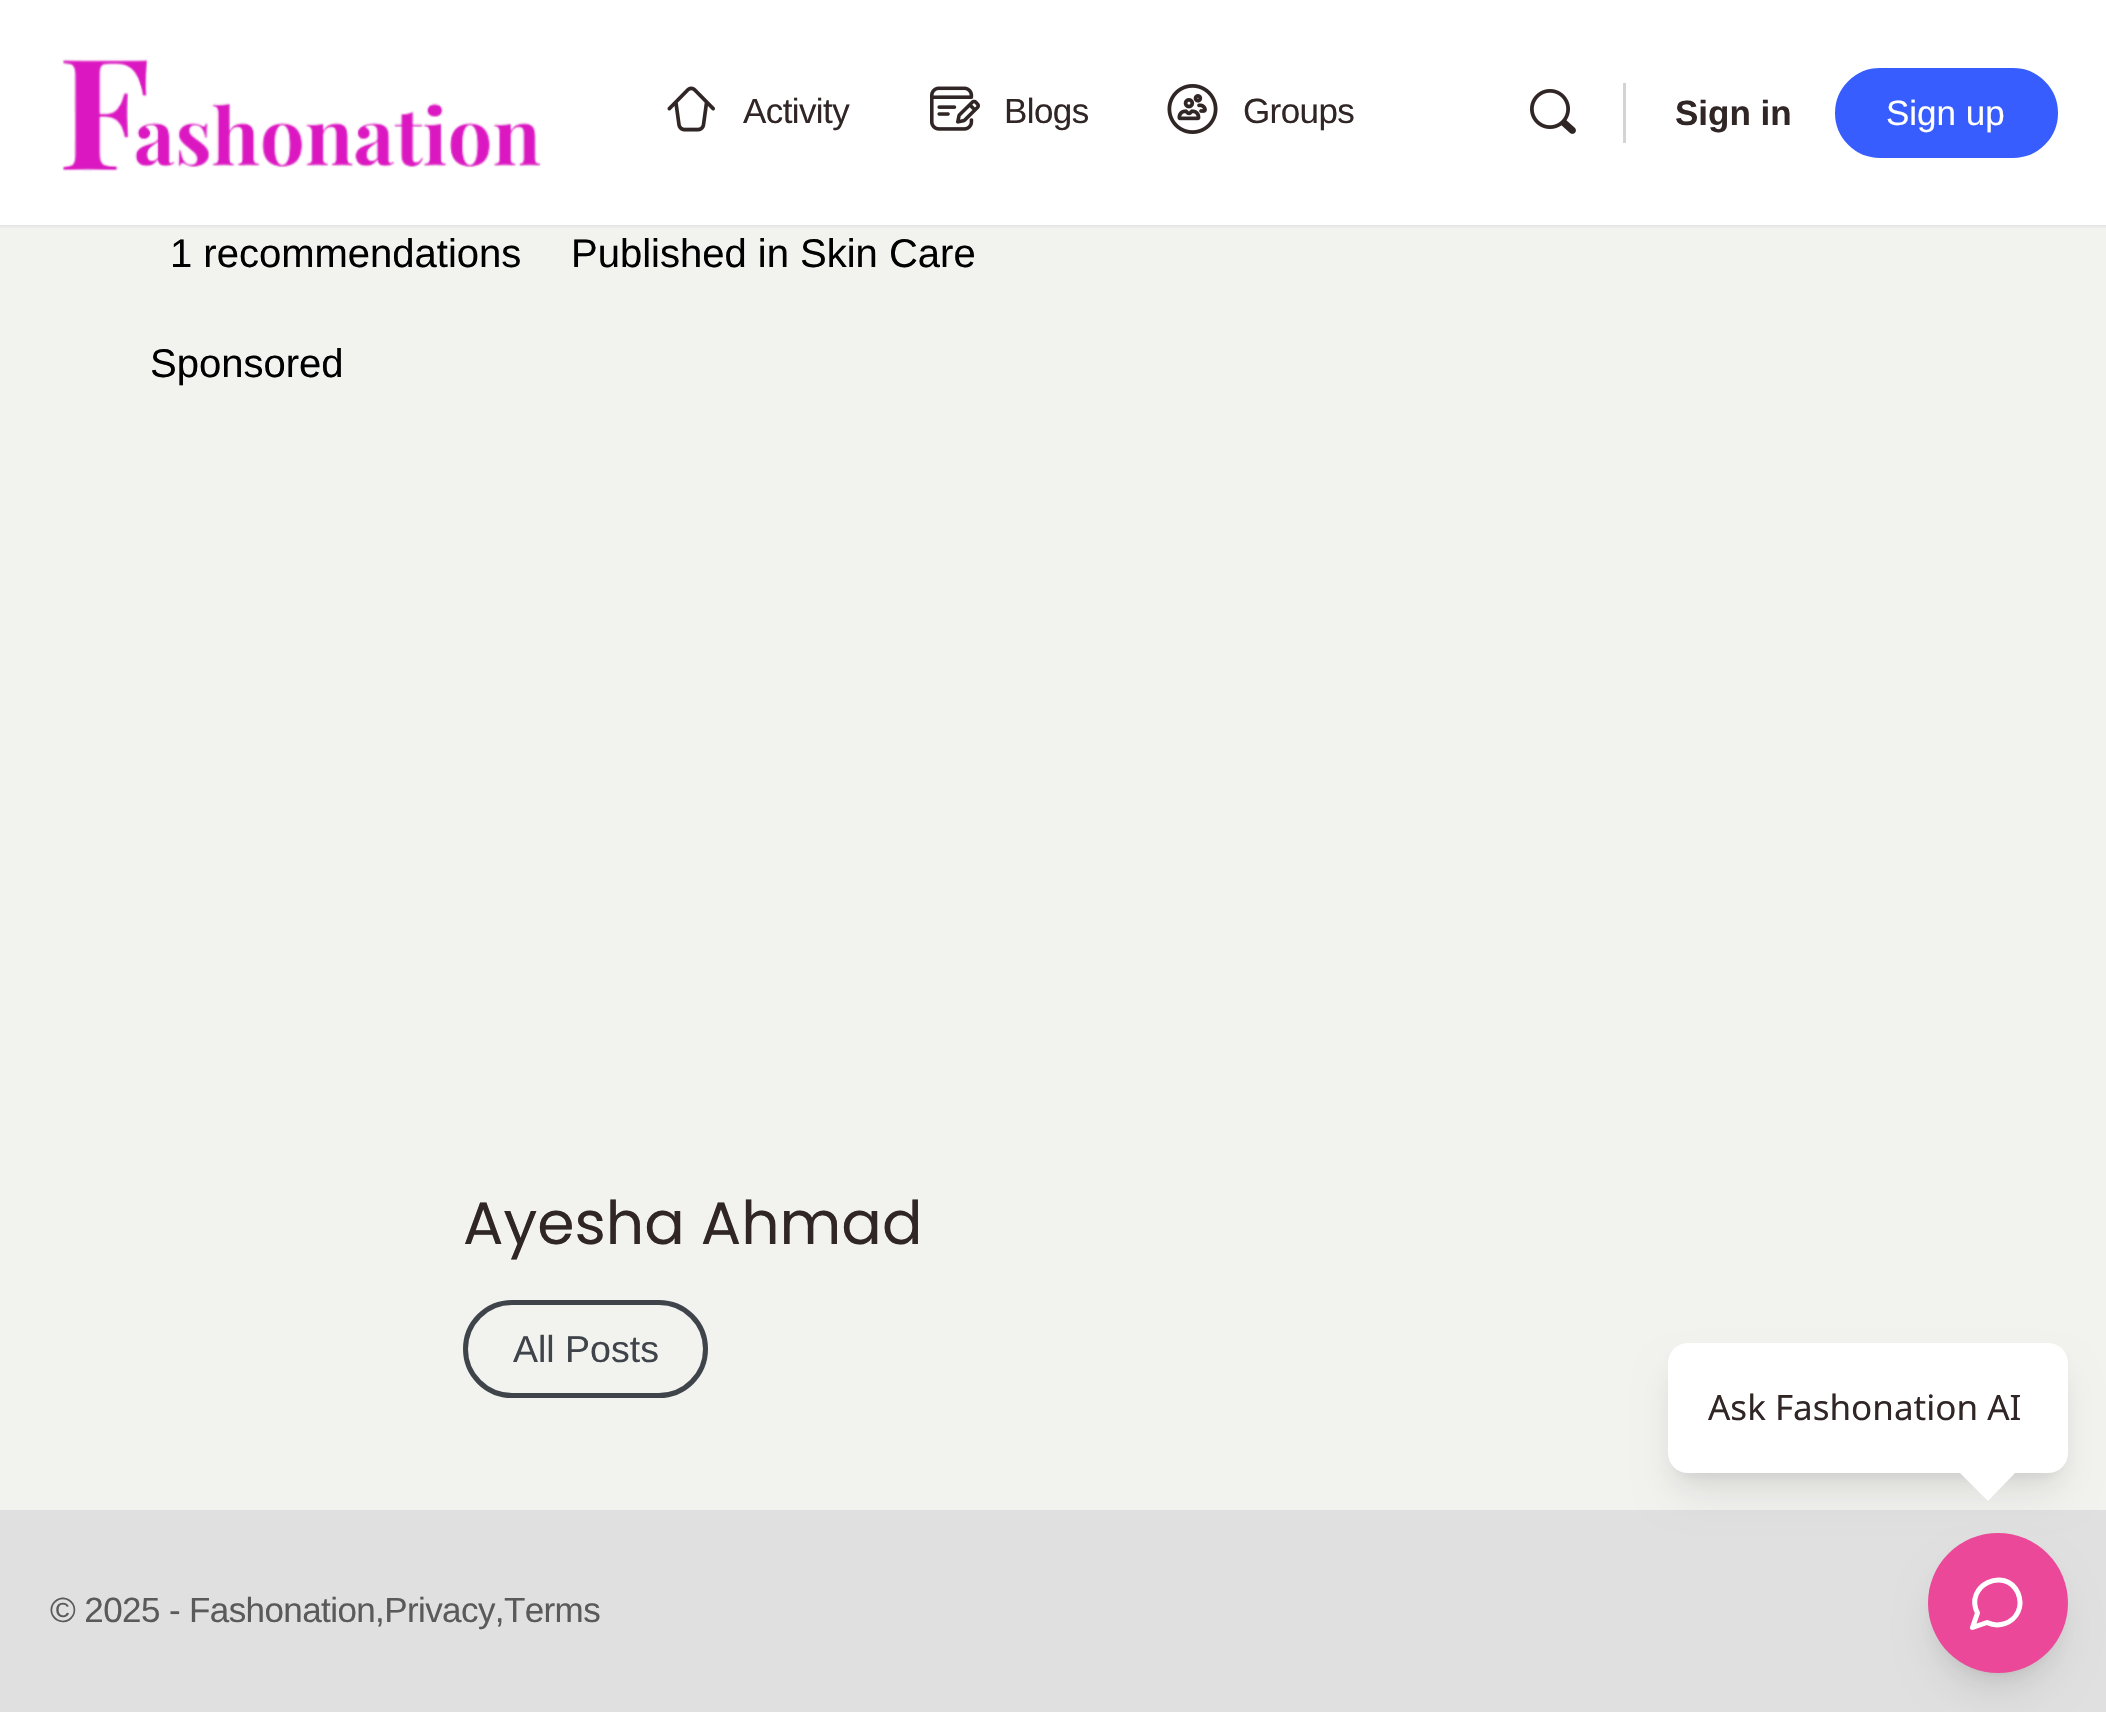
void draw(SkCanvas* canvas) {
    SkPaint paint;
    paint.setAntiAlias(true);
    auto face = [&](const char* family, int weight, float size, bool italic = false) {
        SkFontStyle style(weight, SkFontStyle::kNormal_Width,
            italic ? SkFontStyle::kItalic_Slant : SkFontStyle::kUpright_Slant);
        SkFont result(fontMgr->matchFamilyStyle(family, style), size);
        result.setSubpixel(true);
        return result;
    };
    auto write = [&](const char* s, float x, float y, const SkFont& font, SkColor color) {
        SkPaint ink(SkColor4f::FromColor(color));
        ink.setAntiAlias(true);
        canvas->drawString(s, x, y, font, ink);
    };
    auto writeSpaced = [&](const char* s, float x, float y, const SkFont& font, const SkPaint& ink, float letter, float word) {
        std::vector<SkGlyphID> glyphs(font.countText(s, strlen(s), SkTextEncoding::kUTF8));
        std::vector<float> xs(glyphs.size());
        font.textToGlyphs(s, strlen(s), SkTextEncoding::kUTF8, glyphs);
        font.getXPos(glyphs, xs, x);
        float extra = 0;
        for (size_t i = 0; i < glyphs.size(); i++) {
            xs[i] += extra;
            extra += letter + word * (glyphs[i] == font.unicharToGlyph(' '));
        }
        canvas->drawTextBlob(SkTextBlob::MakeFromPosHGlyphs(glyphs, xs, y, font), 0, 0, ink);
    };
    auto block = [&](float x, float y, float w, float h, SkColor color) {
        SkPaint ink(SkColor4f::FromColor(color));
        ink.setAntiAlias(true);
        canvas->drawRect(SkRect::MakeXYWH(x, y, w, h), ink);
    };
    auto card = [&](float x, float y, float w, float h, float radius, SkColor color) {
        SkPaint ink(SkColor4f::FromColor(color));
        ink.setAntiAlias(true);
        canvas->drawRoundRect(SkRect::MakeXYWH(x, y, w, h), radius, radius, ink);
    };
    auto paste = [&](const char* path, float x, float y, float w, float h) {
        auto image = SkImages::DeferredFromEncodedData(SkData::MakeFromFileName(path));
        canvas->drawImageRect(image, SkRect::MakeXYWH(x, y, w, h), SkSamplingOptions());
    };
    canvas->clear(SkColorSetRGB(242, 242, 239));
    paint.setColor(SkColorSetARGB(38, 65, 71, 108));
    paint.setMaskFilter(SkMaskFilter::MakeBlur(kNormal_SkBlurStyle, 1));
    canvas->drawRect(SkRect::MakeXYWH(0, 0, 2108, 225), paint);
    paint.setMaskFilter(nullptr);
    paint.setColor(SkColorSetARGB(13, 139, 141, 157));
    canvas->drawPath(SkPathBuilder().moveTo(0, 225).lineTo(0, 228).lineTo(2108, 228).lineTo(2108, 3).lineTo(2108, 225).close().detach(), paint);
    block(0, 0, 2106, 225, SK_ColorWHITE);
    paste("pic1.png", 62, 58, 480, 114);
    paste("pic2.png", 667, 86, 48, 46);
    auto kFont1 = face("Liberation Sans", 400, 35);
    paint.setColor(SkColorSetRGB(48, 38, 37));
    writeSpaced("Activity", 743, 123, kFont1, paint, -0.6f, 0);
    paste("pic3.png", 930, 86, 50, 45);
    writeSpaced("Blogs", 1004, 123, kFont1, paint, -0.6f, 0);
    paste("pic4.png", 1167, 84, 51, 50);
    writeSpaced("Groups", 1243, 123, kFont1, paint, -0.6f, 0);
    paste("pic5.png", 1530, 89, 46, 45);
    block(1623, 83, 3, 60, SkColorSetRGB(214, 212, 211));
    auto kFont2 = face("Liberation Sans", 700, 35);
    write("Sign in", 1675, 125, kFont2, SkColorSetRGB(48, 38, 37));
    paint.setColor(SkColorSetRGB(56, 93, 255));
    canvas->drawRoundRect(SkRect::MakeXYWH(1836.5f, 69.5f, 220, 87), 43.5f, 43.5f, paint);
    paint.setStyle(SkPaint::kStroke_Style);
    paint.setStrokeWidth(3);
    canvas->drawRoundRect(SkRect::MakeXYWH(1836.5f, 69.5f, 220, 87), 43.5f, 43.5f, paint);
    write("Sign up", 1886, 125, kFont1, SK_ColorWHITE);
    auto kFont3 = face("Liberation Sans", 400, 40);
    write("1 recommendations", 170, 267, kFont3, SK_ColorBLACK);
    write("Published in Skin Care", 571, 267, kFont3, SK_ColorBLACK);
    write("Sponsored", 150, 377, kFont3, SK_ColorBLACK);
    auto kFont4 = face("Poppins", 400, 60);
    write("Ayesha Ahmad", 463, 1244, kFont4, SkColorSetRGB(48, 38, 37));
    paint.setStrokeWidth(5);
    paint.setColor(SkColorSetRGB(63, 68, 75));
    canvas->drawRoundRect(SkRect::MakeXYWH(465.5f, 1302.5f, 240, 93), 46.5f, 46.5f, paint);
    auto kFont5 = face("Liberation Sans", 400, 37.5f);
    write("All Posts", 513, 1362, kFont5, SkColorSetRGB(63, 68, 75));
    block(0, 1510, 2106, 202, SkColorSetRGB(224, 224, 224));
    paint.setStyle(SkPaint::kFill_Style);
    paint.setColor(SkColorSetRGB(90, 90, 90));
    writeSpaced("© 2025 - Fashonation,Privacy,Terms", 50, 1622, kFont1, paint, -0.6f, 0);
    paint.setColor(SkColorSetARGB(26, 0, 0, 0));
    paint.setMaskFilter(SkMaskFilter::MakeBlur(kNormal_SkBlurStyle, 7.5f));
    canvas->drawRoundRect(SkRect::MakeXYWH(1678, 1363, 380, 110), 10, 10, paint);
    paint.setMaskFilter(nullptr);
    paint.setMaskFilter(SkMaskFilter::MakeBlur(kNormal_SkBlurStyle, 7.5f));
    canvas->drawRoundRect(SkRect::MakeXYWH(1938, 1553, 120, 120), 60, 60, paint);
    paint.setMaskFilter(nullptr);
    paint.setMaskFilter(SkMaskFilter::MakeBlur(kNormal_SkBlurStyle, 19));
    canvas->drawRoundRect(SkRect::MakeXYWH(1935, 1565, 125, 125), 62.5f, 62.5f, paint);
    paint.setMaskFilter(nullptr);
    paint.setColor(SkColorSetRGB(236, 72, 153));
    canvas->drawCircle(1998, 1603, 70, paint);
    paint.setColor(SkColorSetARGB(26, 0, 0, 0));
    paint.setMaskFilter(SkMaskFilter::MakeBlur(kNormal_SkBlurStyle, 19));
    canvas->drawRoundRect(SkRect::MakeXYWH(1675, 1375, 385, 115), 13, 13, paint);
    paint.setMaskFilter(nullptr);
    card(1668, 1343, 400, 130, 20, SK_ColorWHITE);
    auto kFont6 = face("Noto Sans", 400, 35);
    write("Ask Fashonation AI", 1708, 1420, kFont6, SkColorSetRGB(48, 38, 37));
    paint.setColor(SK_ColorWHITE);
    canvas->drawPath(SkPathBuilder().moveTo(1988, 1444).lineTo(2016, 1472).lineTo(1988, 1501).lineTo(1959, 1472).close().detach(), paint);
    paint.setStyle(SkPaint::kStroke_Style);
    paint.setStrokeCap(SkPaint::kRound_Cap);
    paint.setStrokeJoin(SkPaint::kRound_Join);
    canvas->drawPath(SkPathBuilder().moveTo(1987, 1622.5f).cubicTo(1998.5f, 1628, 2012.5f, 1623.5f, 2018, 1612).cubicTo(2020.5f, 1606.5f, 2020.5f, 1599, 2018, 1593).cubicTo(2005.5f, 1565.5f, 1963.5f, 1586, 1977.5f, 1613).lineTo(1972.5f, 1627.5f).close().detach(), paint);
}
